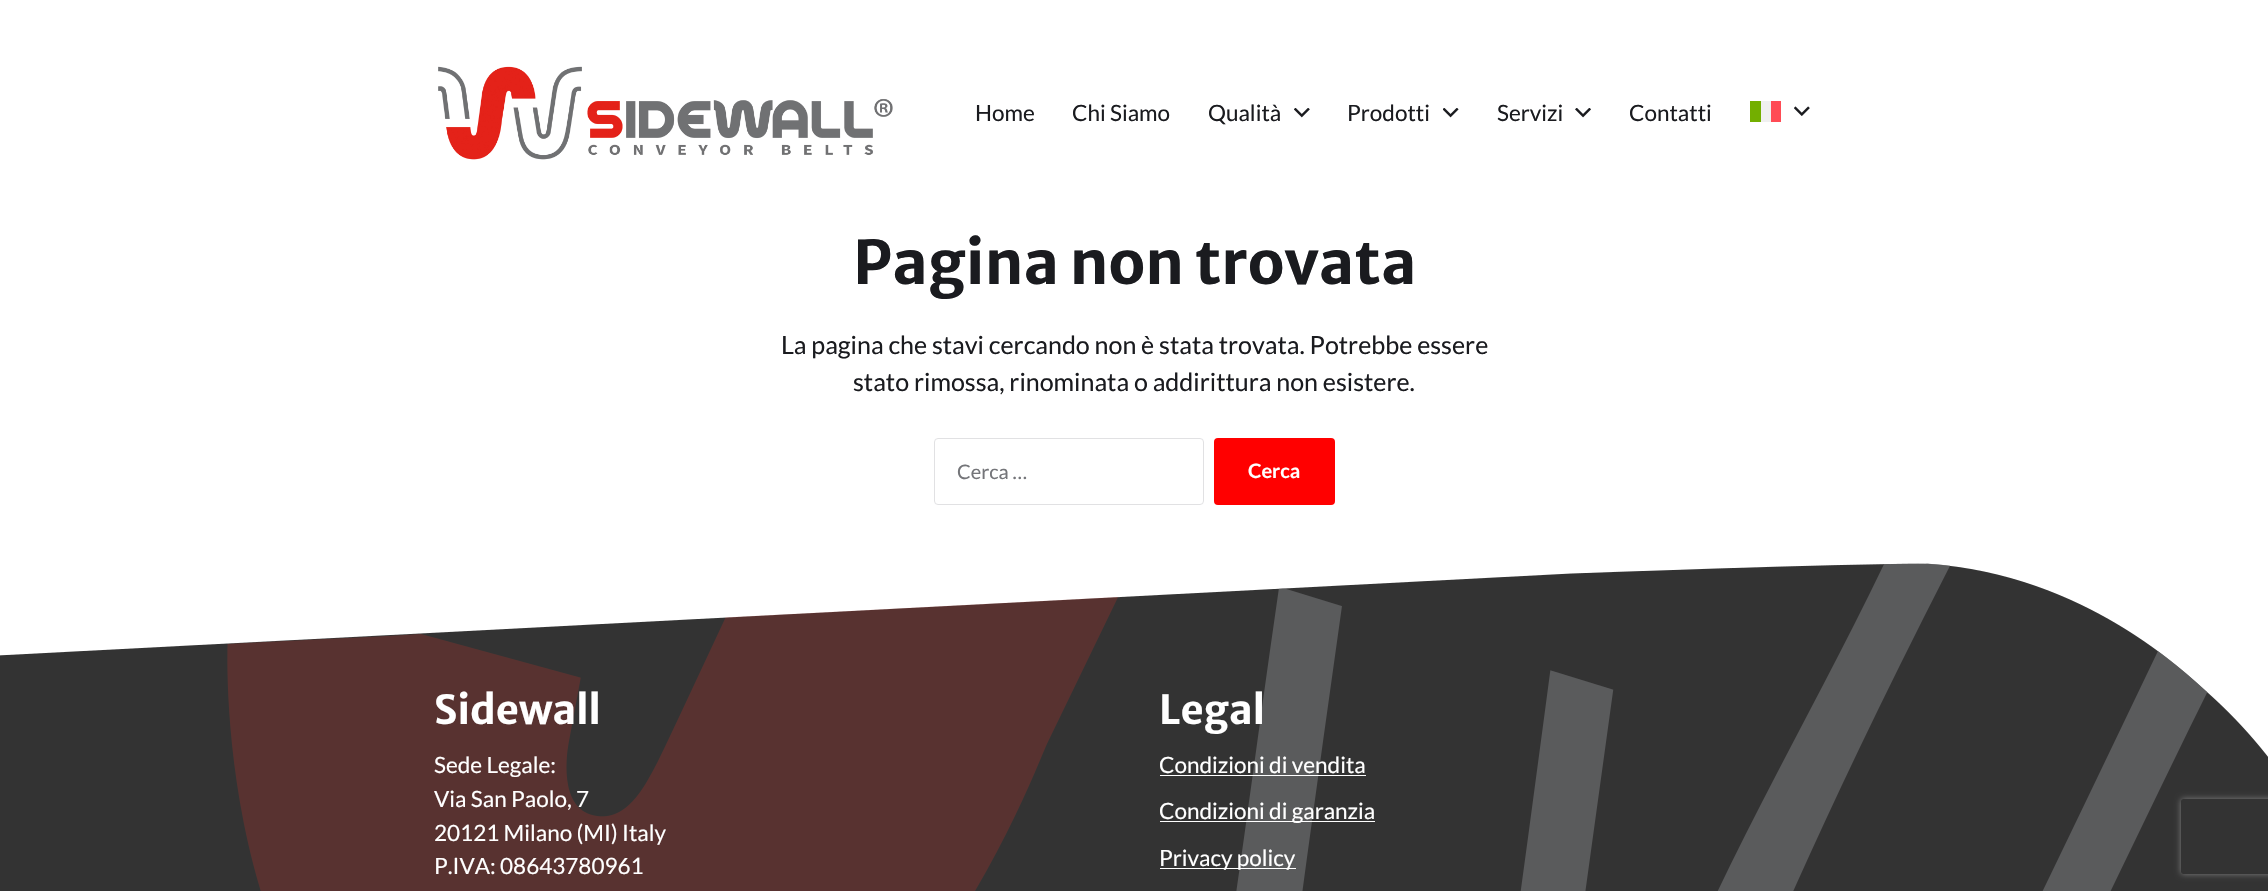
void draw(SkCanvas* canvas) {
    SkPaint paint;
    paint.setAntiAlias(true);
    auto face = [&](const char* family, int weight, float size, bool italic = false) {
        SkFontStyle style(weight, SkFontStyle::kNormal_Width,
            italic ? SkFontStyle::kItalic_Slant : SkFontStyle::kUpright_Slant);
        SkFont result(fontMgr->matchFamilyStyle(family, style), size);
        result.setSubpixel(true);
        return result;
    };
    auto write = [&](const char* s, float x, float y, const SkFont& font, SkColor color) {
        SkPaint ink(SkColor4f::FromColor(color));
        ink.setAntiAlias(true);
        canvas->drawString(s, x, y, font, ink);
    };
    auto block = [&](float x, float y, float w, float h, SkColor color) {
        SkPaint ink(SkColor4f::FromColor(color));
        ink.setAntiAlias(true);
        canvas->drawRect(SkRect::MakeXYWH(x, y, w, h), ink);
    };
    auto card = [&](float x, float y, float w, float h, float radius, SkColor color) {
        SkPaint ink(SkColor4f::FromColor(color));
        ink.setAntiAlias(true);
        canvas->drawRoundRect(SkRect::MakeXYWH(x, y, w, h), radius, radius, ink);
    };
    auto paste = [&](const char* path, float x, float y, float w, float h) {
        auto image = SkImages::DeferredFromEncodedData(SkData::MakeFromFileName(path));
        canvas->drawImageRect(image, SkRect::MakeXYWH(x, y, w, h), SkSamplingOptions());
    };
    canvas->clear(SK_ColorWHITE);
    paste("pic1.png", 438, 66, 455, 94);
    auto kFont1 = face("Lato", 400, 22.5f);
    write("Home", 975, 121, kFont1, SkColorSetRGB(26, 27, 31));
    write("Chi Siamo", 1072, 121, kFont1, SkColorSetRGB(26, 27, 31));
    write("Qualità", 1208, 121, kFont1, SkColorSetRGB(26, 27, 31));
    paste("pic2.png", 1294, 108, 16, 10);
    write("Prodotti", 1347, 121, kFont1, SkColorSetRGB(26, 27, 31));
    paste("pic3.png", 1443, 108, 16, 10);
    write("Servizi", 1497, 121, kFont1, SkColorSetRGB(26, 27, 31));
    paste("pic4.png", 1575, 108, 16, 10);
    write("Contatti", 1629, 121, kFont1, SkColorSetRGB(26, 27, 31));
    block(1761, 101, 10, 21, SkColorSetRGB(240, 240, 240));
    block(1771, 101, 10, 21, SkColorSetRGB(255, 75, 85));
    block(1750, 101, 11, 21, SkColorSetRGB(115, 175, 0));
    paste("pic5.png", 1794, 106, 16, 10);
    auto kFont2 = face("Merriweather Sans", 700, 60);
    write("Pagina non trovata", 853, 284, kFont2, SkColorSetRGB(26, 27, 31));
    auto kFont3 = face("Lato", 400, 25);
    write("La pagina che stavi cercando non è stata trovata. Potrebbe essere", 781, 354, kFont3, SkColorSetRGB(26, 27, 31));
    write("stato rimossa, rinominata o addirittura non esistere.", 853, 391, kFont3, SkColorSetRGB(26, 27, 31));
    paint.setStyle(SkPaint::kStroke_Style);
    paint.setStrokeWidth(1);
    paint.setColor(SkColorSetRGB(225, 225, 227));
    canvas->drawRoundRect(SkRect::MakeXYWH(934.5f, 438.5f, 269, 66), 3.5f, 3.5f, paint);
    auto kFont4 = face("Lato", 400, 20);
    write("Cerca …", 957, 479, kFont4, SkColorSetRGB(116, 117, 121));
    card(1214, 438, 121, 67, 4, SkColorSetRGB(255, 0, 0));
    auto kFont5 = face("Lato", 700, 20);
    write("Cerca", 1248, 478, kFont5, SK_ColorWHITE);
    paste("pic6.png", 0, 563, 2268, 328);
    auto kFont6 = face("Merriweather Sans", 700, 40);
    write("Sidewall", 434, 724, kFont6, SK_ColorWHITE);
    write("Sede Legale:", 434, 773, kFont1, SK_ColorWHITE);
    write("Via San Paolo, 7", 434, 807, kFont1, SK_ColorWHITE);
    write("20121 Milano (MI) Italy", 434, 841, kFont1, SK_ColorWHITE);
    write("P.IVA: 08643780961", 434, 874, kFont1, SK_ColorWHITE);
    write("Legal", 1159, 724, kFont6, SK_ColorWHITE);
    write("Condizioni di vendita", 1159, 773, kFont1, SK_ColorWHITE);
    block(1160, 775, 206, 1, SK_ColorWHITE);
    block(1160, 821, 215, 1, SK_ColorWHITE);
    write("Condizioni di garanzia", 1159, 819, kFont1, SK_ColorWHITE);
    block(1160, 868, 136, 1, SK_ColorWHITE);
    write("Privacy policy", 1159, 866, kFont1, SK_ColorWHITE);
    canvas->save();
    canvas->clipPath(SkPathBuilder(SkPathFillType::kEvenOdd).moveTo(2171, 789).lineTo(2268, 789).lineTo(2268, 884).lineTo(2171, 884).close().moveTo(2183.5f, 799).lineTo(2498.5f, 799).cubicTo(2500, 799, 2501, 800, 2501, 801.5f).lineTo(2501, 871.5f).cubicTo(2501, 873, 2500, 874, 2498.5f, 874).lineTo(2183.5f, 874).cubicTo(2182, 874, 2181, 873, 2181, 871.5f).lineTo(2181, 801.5f).cubicTo(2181, 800, 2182, 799, 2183.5f, 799).close().detach(), true);
    paint.setStyle(SkPaint::kFill_Style);
    paint.setColor(SkColorSetRGB(128, 128, 128));
    paint.setMaskFilter(SkMaskFilter::MakeBlur(kNormal_SkBlurStyle, 3));
    canvas->drawRoundRect(SkRect::MakeXYWH(2181, 799, 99, 75), 2.5f, 2.5f, paint);
    paint.setMaskFilter(nullptr);
    canvas->restore();
}
